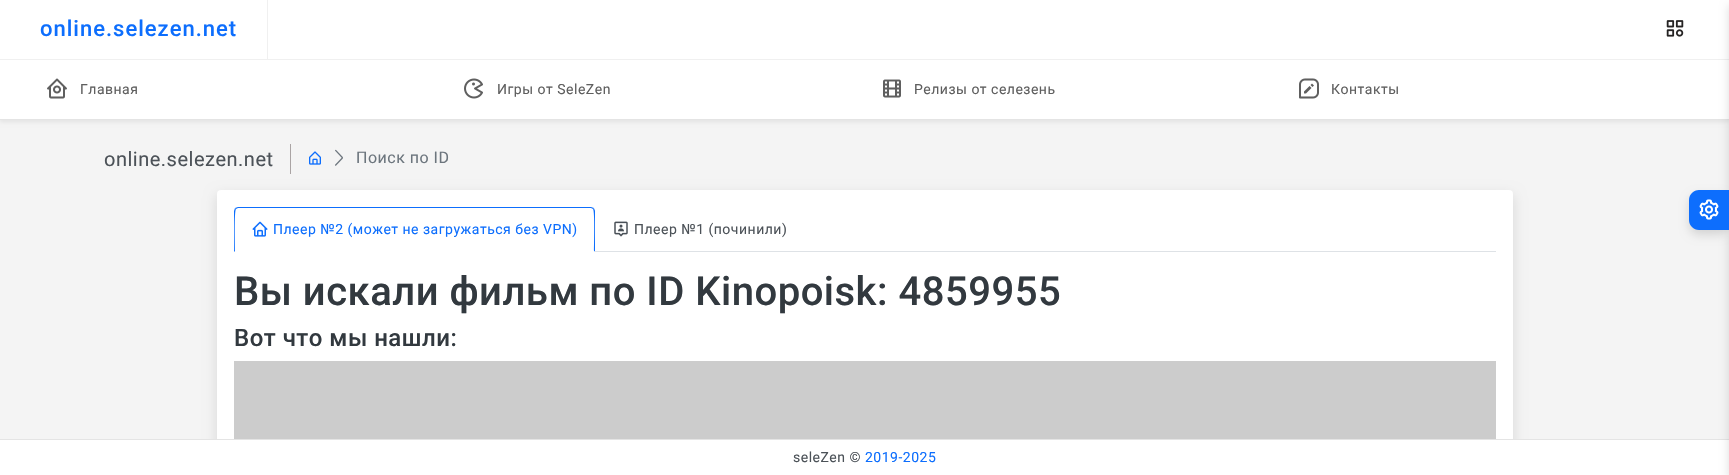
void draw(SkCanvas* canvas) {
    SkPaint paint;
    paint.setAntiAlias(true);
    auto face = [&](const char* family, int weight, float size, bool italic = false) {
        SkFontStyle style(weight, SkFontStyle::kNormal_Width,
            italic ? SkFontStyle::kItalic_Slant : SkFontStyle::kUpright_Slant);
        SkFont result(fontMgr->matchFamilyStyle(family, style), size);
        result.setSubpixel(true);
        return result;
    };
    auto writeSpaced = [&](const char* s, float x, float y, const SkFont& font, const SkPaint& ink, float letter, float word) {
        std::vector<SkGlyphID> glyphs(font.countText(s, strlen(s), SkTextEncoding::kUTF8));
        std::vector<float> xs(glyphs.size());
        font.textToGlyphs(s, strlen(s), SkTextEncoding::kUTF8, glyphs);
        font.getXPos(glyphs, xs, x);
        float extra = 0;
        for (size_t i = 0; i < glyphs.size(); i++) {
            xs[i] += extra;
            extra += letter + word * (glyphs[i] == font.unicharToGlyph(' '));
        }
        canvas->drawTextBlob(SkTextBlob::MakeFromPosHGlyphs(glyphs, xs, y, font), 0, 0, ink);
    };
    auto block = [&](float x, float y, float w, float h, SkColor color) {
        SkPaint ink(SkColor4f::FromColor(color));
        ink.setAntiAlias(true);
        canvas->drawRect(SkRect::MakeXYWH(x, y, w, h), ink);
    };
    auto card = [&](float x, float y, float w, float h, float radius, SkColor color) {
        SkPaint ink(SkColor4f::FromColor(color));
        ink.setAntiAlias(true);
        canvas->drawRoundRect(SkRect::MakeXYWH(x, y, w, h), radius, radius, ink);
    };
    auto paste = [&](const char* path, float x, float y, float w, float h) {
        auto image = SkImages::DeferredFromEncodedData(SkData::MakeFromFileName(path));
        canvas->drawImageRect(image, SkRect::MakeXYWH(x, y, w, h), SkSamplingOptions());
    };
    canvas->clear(SkColorSetRGB(244, 244, 244));
    paint.setColor(SkColorSetARGB(18, 0, 0, 0));
    paint.setMaskFilter(SkMaskFilter::MakeBlur(kNormal_SkBlurStyle, 2));
    canvas->drawRect(SkRect::MakeXYWH(0, 62, 1729, 60), paint);
    paint.setMaskFilter(nullptr);
    block(0, 0, 1729, 59, SK_ColorWHITE);
    block(0, 59, 1729, 1, SkColorSetRGB(240, 240, 240));
    block(267, 0, 1, 60, SkColorSetRGB(240, 240, 240));
    auto kFont1 = face("Roboto", 500, 22);
    paint.setColor(SkColorSetRGB(13, 110, 253));
    writeSpaced("online.selezen.net", 40, 36, kFont1, paint, 1, 0);
    paste("pic1.png", 1666, 20, 18, 17);
    block(0, 60, 1729, 59, SK_ColorWHITE);
    block(0, 119, 1729, 1, SkColorSetRGB(228, 228, 228));
    paste("pic2.png", 47, 78, 20, 21);
    auto kFont2 = face("Roboto", 400, 14);
    paint.setColor(SkColorSetRGB(95, 95, 95));
    writeSpaced("Главная", 80, 94, kFont2, paint, 0.5f, 0);
    paste("pic3.png", 464, 78, 19, 21);
    writeSpaced("Игры от SeleZen", 497, 94, kFont2, paint, 0.5f, 0);
    paste("pic4.png", 883, 79, 18, 19);
    writeSpaced("Релизы от селезень", 914, 94, kFont2, paint, 0.5f, 0);
    paste("pic5.png", 1299, 78, 20, 21);
    writeSpaced("Контакты", 1331, 94, kFont2, paint, 0.5f, 0);
    block(290, 144, 1, 30, SkColorSetRGB(170, 164, 164));
    auto kFont3 = face("Roboto", 400, 20);
    paint.setColor(SkColorSetRGB(76, 82, 88));
    writeSpaced("online.selezen.net", 104, 166, kFont3, paint, 0.5f, 0);
    paste("pic6.png", 309, 151, 12, 14);
    paste("pic7.png", 335, 149, 8, 17);
    auto kFont4 = face("Roboto", 400, 16);
    paint.setColor(SkColorSetRGB(108, 117, 125));
    writeSpaced("Поиск по ID", 356, 163, kFont4, paint, 0.5f, 0);
    paint.setColor(SkColorSetARGB(31, 0, 0, 0));
    paint.setMaskFilter(SkMaskFilter::MakeBlur(kNormal_SkBlurStyle, 6.5f));
    canvas->drawRoundRect(SkRect::MakeXYWH(217, 195, 1296, 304), 4, 4, paint);
    paint.setMaskFilter(nullptr);
    card(217, 190, 1296, 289, 4, SK_ColorWHITE);
    block(595, 251, 901, 1, SkColorSetRGB(222, 226, 230));
    paint.setColor(SkColorSetRGB(13, 110, 253));
    canvas->drawPath(SkPathBuilder().moveTo(238, 207).lineTo(235, 208).lineTo(236, 209).lineTo(238, 208).lineTo(591, 208).lineTo(593, 209).lineTo(594, 208).lineTo(591, 207).close().detach(), paint);
    canvas->drawPath(SkPathBuilder().moveTo(595, 252).lineTo(595, 211).cubicTo(595, 210, 594, 209, 594, 208).lineTo(593, 209).cubicTo(595, 211, 594, 246, 594, 251).close().detach(), paint);
    paint.setColor(SK_ColorWHITE);
    canvas->drawPath(SkPathBuilder().moveTo(595, 252).lineTo(594, 251).lineTo(235, 251).lineTo(234, 252).close().detach(), paint);
    paint.setColor(SkColorSetRGB(13, 110, 253));
    canvas->drawPath(SkPathBuilder().moveTo(234, 252).lineTo(235, 251).cubicTo(235, 246, 234, 211, 236, 209).lineTo(235, 208).lineTo(234, 211).close().detach(), paint);
    paste("pic8.png", 252, 221, 16, 16);
    writeSpaced("Плеер №2 (может не загружаться без VPN)", 273, 234, kFont2, paint, 0.5f, 0);
    paste("pic9.png", 614, 221, 14, 16);
    paint.setColor(SkColorSetRGB(76, 82, 88));
    writeSpaced("Плеер №1 (починили)", 634, 234, kFont2, paint, 0.5f, 0);
    auto kFont5 = face("Roboto", 500, 40);
    paint.setColor(SkColorSetRGB(50, 57, 63));
    writeSpaced("Вы искали фильм по ID Kinopoisk: 4859955", 234, 305, kFont5, paint, 0.5f, 0);
    auto kFont6 = face("Roboto", 500, 24);
    writeSpaced("Вот что мы нашли:", 234, 346, kFont6, paint, 0.5f, 0);
    block(234, 361, 1262, 78, SkColorSetRGB(204, 204, 204));
    block(0, 440, 1729, 35, SK_ColorWHITE);
    block(0, 439, 1729, 1, SkColorSetRGB(228, 228, 228));
    paint.setColor(SkColorSetARGB(33, 0, 0, 0));
    paint.setMaskFilter(SkMaskFilter::MakeBlur(kNormal_SkBlurStyle, 5));
    canvas->drawRect(SkRect::MakeXYWH(1729, 5, 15, 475), paint);
    paint.setMaskFilter(nullptr);
    paint.setMaskFilter(SkMaskFilter::MakeBlur(kNormal_SkBlurStyle, 5));
    canvas->drawRoundRect(SkRect::MakeXYWH(1689, 195, 40, 40), 10, 10, paint);
    paint.setMaskFilter(nullptr);
    paint.setColor(SkColorSetRGB(13, 110, 253));
    canvas->drawPath(SkPathBuilder().moveTo(1699, 190).lineTo(1729, 190).lineTo(1729, 230).lineTo(1699, 230).cubicTo(1693.5f, 230, 1689, 225.5f, 1689, 220).lineTo(1689, 200).cubicTo(1689, 194.5f, 1693.5f, 190, 1699, 190).close().detach(), paint);
    paste("pic10.png", 1699, 199, 20, 21);
    paint.setColor(SkColorSetRGB(76, 82, 88));
    writeSpaced("seleZen ©", 793, 462, kFont2, paint, 0.5f, 0);
    paint.setColor(SkColorSetRGB(13, 110, 253));
    writeSpaced("2019-2025", 865, 462, kFont2, paint, 0.5f, 0);
}
